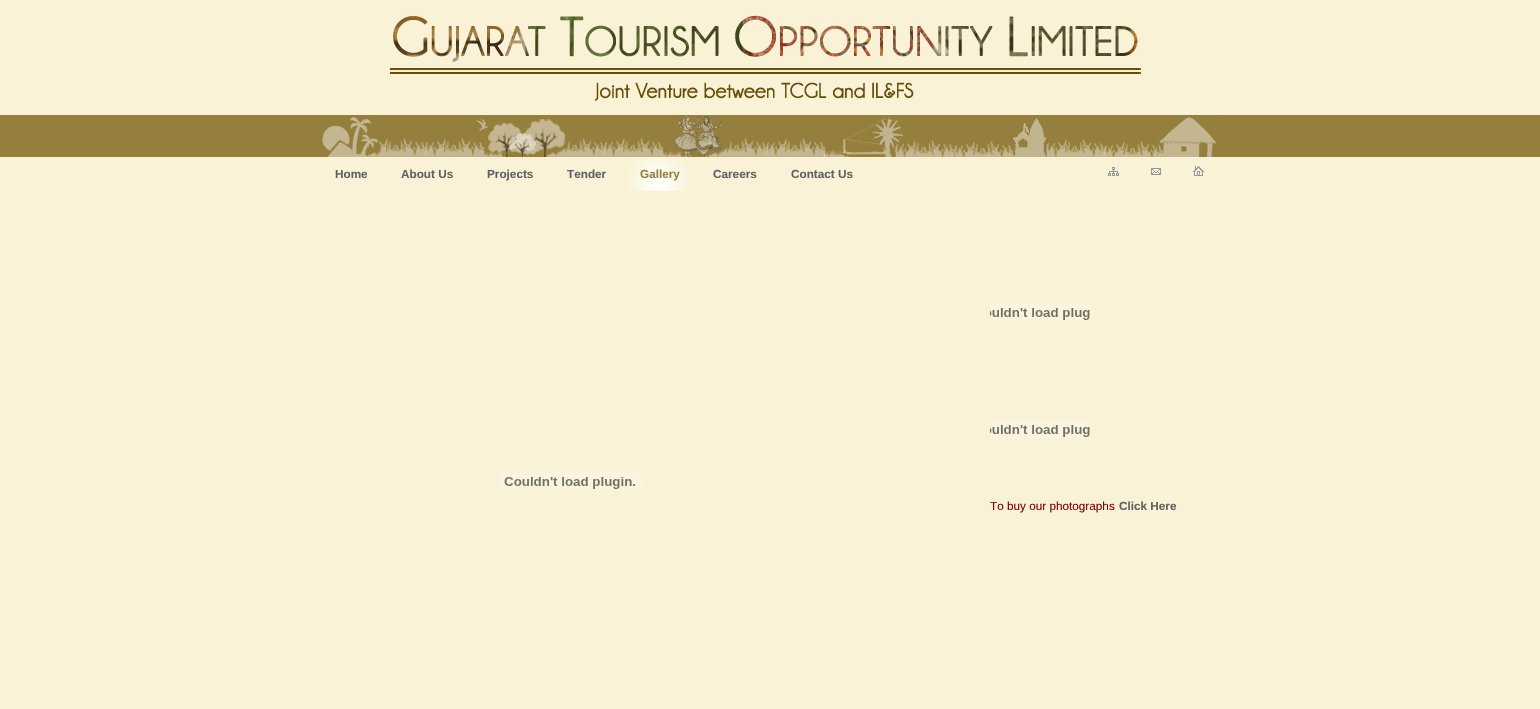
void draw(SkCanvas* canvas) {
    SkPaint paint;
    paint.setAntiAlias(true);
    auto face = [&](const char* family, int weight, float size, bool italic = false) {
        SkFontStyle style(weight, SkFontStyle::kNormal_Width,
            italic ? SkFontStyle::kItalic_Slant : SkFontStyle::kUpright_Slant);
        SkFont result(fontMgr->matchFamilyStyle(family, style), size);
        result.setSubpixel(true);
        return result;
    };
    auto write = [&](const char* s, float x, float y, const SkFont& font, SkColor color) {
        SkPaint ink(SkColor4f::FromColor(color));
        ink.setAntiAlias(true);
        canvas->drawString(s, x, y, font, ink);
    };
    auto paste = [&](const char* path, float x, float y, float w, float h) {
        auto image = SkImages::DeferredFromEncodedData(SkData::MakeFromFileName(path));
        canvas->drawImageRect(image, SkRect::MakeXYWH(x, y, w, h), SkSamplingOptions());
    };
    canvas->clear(SkColorSetRGB(249, 242, 214));
    paste("pic1.png", 0, 114, 1540, 44);
    paste("pic2.png", 320, 15, 900, 100);
    paste("pic3.png", 320, 115, 900, 42);
    auto kFont1 = face("Liberation Sans", 700, 11.75f);
    write("Home", 335, 178, kFont1, SkColorSetRGB(97, 97, 97));
    write("About Us", 401, 178, kFont1, SkColorSetRGB(97, 97, 97));
    write("Projects", 487, 178, kFont1, SkColorSetRGB(97, 97, 97));
    write("Tender", 567, 178, kFont1, SkColorSetRGB(97, 97, 97));
    paste("pic4.png", 629, 158, 60, 33);
    paste("pic5.png", 1108, 167, 11, 9);
    paste("pic6.png", 1151, 168, 10, 7);
    paste("pic7.png", 1193, 166, 11, 10);
    write("Gallery", 640, 178, kFont1, SkColorSetRGB(149, 127, 60));
    write("Careers", 713, 178, kFont1, SkColorSetRGB(97, 97, 97));
    write("Contact Us", 791, 178, kFont1, SkColorSetRGB(97, 97, 97));
    paste("pic8.png", 498, 472, 144, 18);
    paste("pic9.png", 990, 303, 100, 18);
    paste("pic10.png", 990, 421, 100, 18);
    auto kFont2 = face("Liberation Sans", 400, 11.75f);
    write("To buy our photographs", 990, 510, kFont2, SkColorSetRGB(128, 0, 0));
    write("Click Here", 1119, 510, kFont1, SkColorSetRGB(97, 97, 97));
}
